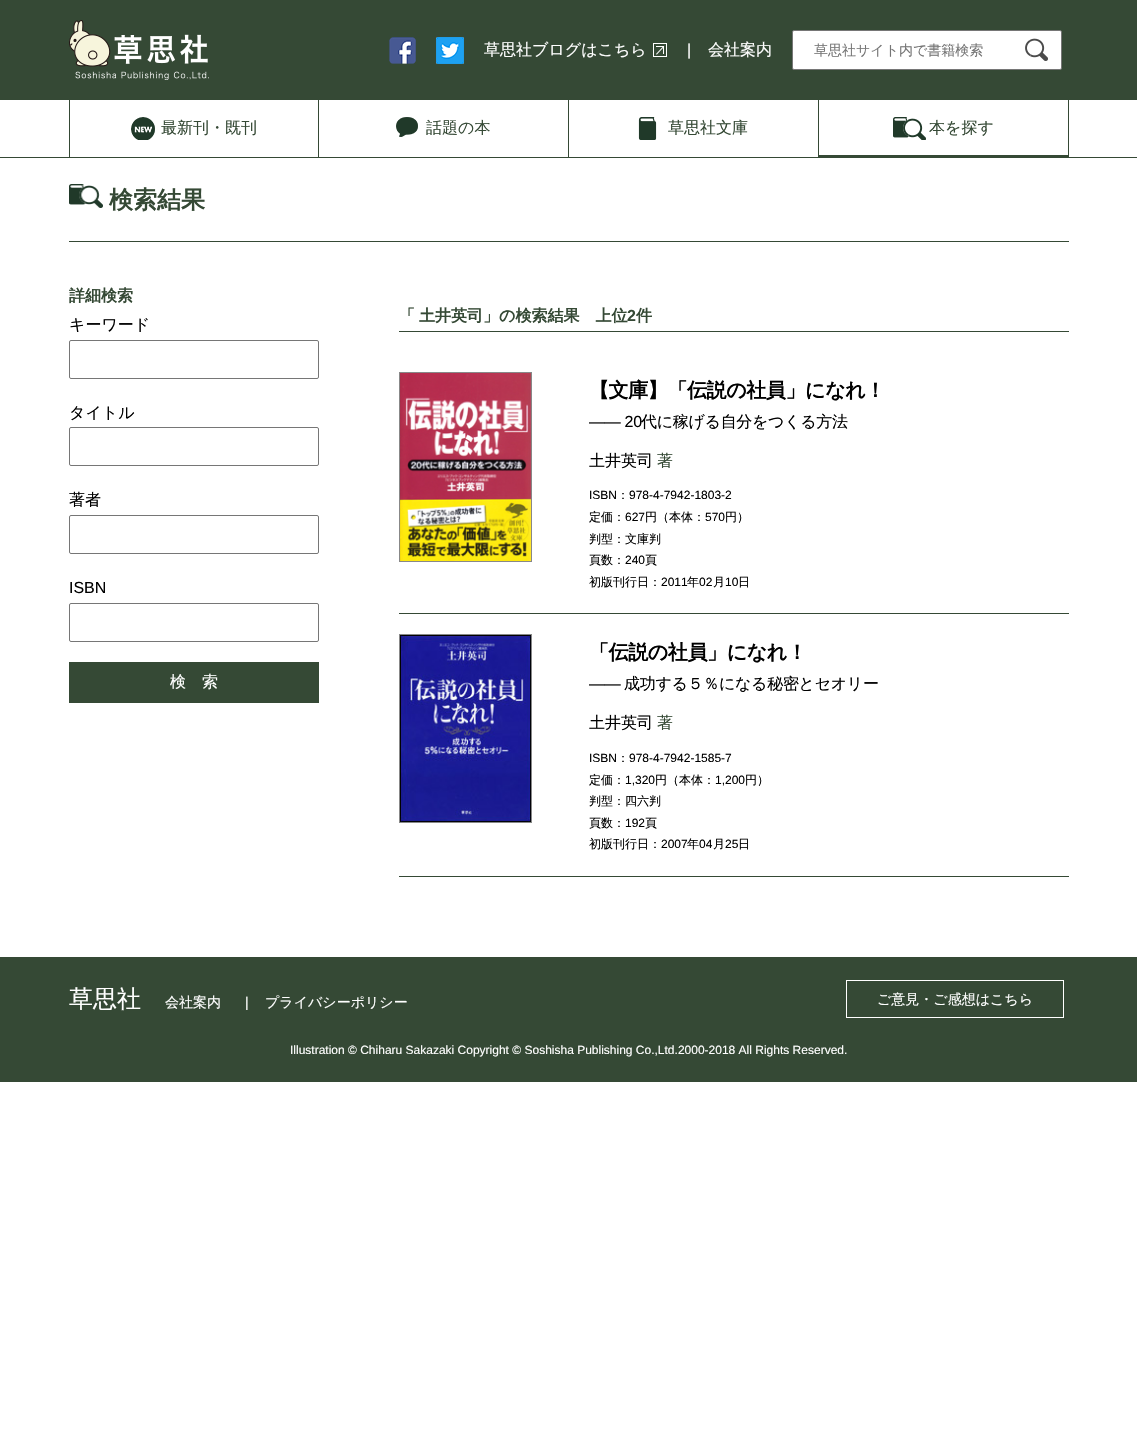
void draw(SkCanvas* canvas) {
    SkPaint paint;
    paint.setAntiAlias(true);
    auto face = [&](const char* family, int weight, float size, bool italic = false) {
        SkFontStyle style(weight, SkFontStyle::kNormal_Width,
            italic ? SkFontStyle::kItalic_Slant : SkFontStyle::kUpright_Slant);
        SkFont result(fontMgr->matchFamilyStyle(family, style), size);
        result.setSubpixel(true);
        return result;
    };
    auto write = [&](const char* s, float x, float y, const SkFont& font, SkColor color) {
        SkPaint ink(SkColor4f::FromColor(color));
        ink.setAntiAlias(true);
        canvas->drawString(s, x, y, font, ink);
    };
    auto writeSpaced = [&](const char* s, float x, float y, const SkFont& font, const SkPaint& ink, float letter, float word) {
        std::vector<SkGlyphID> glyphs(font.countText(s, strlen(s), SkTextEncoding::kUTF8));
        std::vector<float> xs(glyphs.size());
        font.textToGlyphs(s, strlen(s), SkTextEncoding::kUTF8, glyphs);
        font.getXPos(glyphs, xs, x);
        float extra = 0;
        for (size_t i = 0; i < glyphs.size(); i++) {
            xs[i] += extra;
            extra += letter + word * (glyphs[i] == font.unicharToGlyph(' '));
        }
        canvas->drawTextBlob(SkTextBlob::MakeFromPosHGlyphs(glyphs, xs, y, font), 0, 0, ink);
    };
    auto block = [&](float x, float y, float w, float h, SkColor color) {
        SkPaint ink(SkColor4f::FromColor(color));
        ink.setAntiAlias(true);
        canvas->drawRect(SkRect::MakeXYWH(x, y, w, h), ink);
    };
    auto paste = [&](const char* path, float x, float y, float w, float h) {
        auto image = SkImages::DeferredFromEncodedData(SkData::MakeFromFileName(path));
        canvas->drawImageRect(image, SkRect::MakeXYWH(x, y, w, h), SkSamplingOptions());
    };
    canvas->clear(SK_ColorWHITE);
    block(0, 0, 1137, 100, SkColorSetRGB(53, 73, 53));
    paste("pic1.png", 69, 20, 140, 60);
    paste("pic2.png", 389, 37, 27, 27);
    paste("pic3.png", 436, 37, 28, 27);
    auto kFont1 = face("WenQuanYi Zen Hei", 500, 16);
    write("草思社ブログはこちら", 484, 55, kFont1, SK_ColorWHITE);
    paste("pic4.png", 653, 43, 14, 14);
    auto kFont2 = face("Liberation Sans", 400, 16);
    write("|", 687, 55, kFont2, SK_ColorWHITE);
    write("会社案内", 708, 55, kFont1, SK_ColorWHITE);
    paint.setColor(SK_ColorWHITE);
    canvas->drawRoundRect(SkRect::MakeXYWH(792.5f, 30.5f, 269, 39), 1.5f, 1.5f, paint);
    paint.setStyle(SkPaint::kStroke_Style);
    paint.setStrokeWidth(1);
    paint.setColor(SkColorSetRGB(118, 118, 118));
    canvas->drawRoundRect(SkRect::MakeXYWH(792.5f, 30.5f, 269, 39), 1.5f, 1.5f, paint);
    auto kFont3 = face("WenQuanYi Zen Hei", 500, 14);
    write("草思社サイト内で書籍検索", 814, 55, kFont3, SkColorSetRGB(117, 117, 117));
    paste("pic5.png", 1025, 38, 23, 23);
    block(0, 157, 1137, 1, SkColorSetRGB(53, 73, 53));
    block(69, 100, 1, 57, SkColorSetRGB(53, 73, 53));
    block(318, 100, 1, 57, SkColorSetRGB(53, 73, 53));
    paste("pic6.png", 131, 117, 24, 23);
    write("最新刊・既刊", 161, 133, kFont1, SkColorSetRGB(53, 73, 53));
    block(568, 100, 1, 57, SkColorSetRGB(53, 73, 53));
    paste("pic7.png", 396, 117, 22, 20);
    write("話題の本", 426, 133, kFont1, SkColorSetRGB(53, 73, 53));
    block(818, 100, 1, 57, SkColorSetRGB(53, 73, 53));
    paste("pic8.png", 638, 117, 19, 23);
    write("草思社文庫", 668, 133, kFont1, SkColorSetRGB(53, 73, 53));
    block(1068, 100, 1, 57, SkColorSetRGB(53, 73, 53));
    block(819, 155, 249, 2, SkColorSetRGB(53, 73, 53));
    paste("pic9.png", 893, 117, 33, 23);
    write("本を探す", 929, 133, kFont1, SkColorSetRGB(53, 73, 53));
    paste("pic10.png", 69, 184, 34, 24);
    block(69, 241, 1000, 1, SkColorSetRGB(53, 73, 53));
    auto kFont4 = face("WenQuanYi Zen Hei", 700, 24);
    write("検索結果", 109, 208, kFont4, SkColorSetRGB(53, 73, 53));
    canvas->save();
    canvas->clipRect(SkRect::MakeXYWH(69, 242, 1000, 715));
    auto kFont5 = face("WenQuanYi Zen Hei", 700, 16);
    write("詳細検索", 69, 301, kFont5, SkColorSetRGB(53, 73, 53));
    canvas->restore();
    write("キーワード", 69, 330, kFont1, SK_ColorBLACK);
    canvas->drawRoundRect(SkRect::MakeXYWH(69.5f, 340.5f, 249, 38), 1.5f, 1.5f, paint);
    write("タイトル", 69, 418, kFont1, SK_ColorBLACK);
    canvas->drawRoundRect(SkRect::MakeXYWH(69.5f, 427.5f, 249, 38), 1.5f, 1.5f, paint);
    write("著者", 69, 505, kFont1, SK_ColorBLACK);
    canvas->drawRoundRect(SkRect::MakeXYWH(69.5f, 515.5f, 249, 38), 1.5f, 1.5f, paint);
    write("ISBN", 69, 593, kFont2, SK_ColorBLACK);
    canvas->drawRoundRect(SkRect::MakeXYWH(69.5f, 603.5f, 249, 38), 1.5f, 1.5f, paint);
    block(69, 662, 250, 41, SkColorSetRGB(53, 73, 53));
    write("検　索", 170, 687, kFont1, SK_ColorWHITE);
    write("「", 399, 321, kFont5, SkColorSetRGB(53, 73, 53));
    write("土井英司」の検索結果　上位", 419, 321, kFont5, SkColorSetRGB(53, 73, 53));
    auto kFont6 = face("Liberation Sans", 700, 16);
    write("2", 627, 321, kFont6, SkColorSetRGB(53, 73, 53));
    write("件", 636, 321, kFont5, SkColorSetRGB(53, 73, 53));
    block(399, 331, 670, 1, SkColorSetRGB(53, 73, 53));
    block(399, 613, 670, 1, SkColorSetRGB(53, 73, 53));
    paint.setColor(SkColorSetRGB(136, 136, 136));
    canvas->drawRect(SkRect::MakeXYWH(399.5f, 372.5f, 132, 189), paint);
    paste("pic11.png", 400, 373, 131, 188);
    auto kFont7 = face("WenQuanYi Zen Hei", 700, 20);
    paint.setStyle(SkPaint::kFill_Style);
    paint.setColor(SK_ColorBLACK);
    writeSpaced("【文庫】「伝説の社員」になれ！", 589, 397, kFont7, paint, -0.4f, 0);
    writeSpaced("―― 20", 589, 427, kFont2, paint, -0.3f, 0);
    writeSpaced("代に稼げる自分をつくる方法", 641, 427, kFont1, paint, -0.3f, 0);
    write("土井英司", 589, 466, kFont1, SK_ColorBLACK);
    write("著", 657, 466, kFont1, SkColorSetRGB(53, 73, 53));
    auto kFont8 = face("Liberation Sans", 400, 12);
    write("ISBN", 589, 499, kFont8, SK_ColorBLACK);
    auto kFont9 = face("WenQuanYi Zen Hei", 500, 12);
    write("：", 617, 499, kFont9, SK_ColorBLACK);
    write("978-4-7942-1803-2", 629, 499, kFont8, SK_ColorBLACK);
    write("定価：", 589, 521, kFont9, SK_ColorBLACK);
    write("627", 625, 521, kFont8, SK_ColorBLACK);
    write("円（本体：", 645, 521, kFont9, SK_ColorBLACK);
    write("570", 705, 521, kFont8, SK_ColorBLACK);
    write("円）", 725, 521, kFont9, SK_ColorBLACK);
    write("判型：文庫判", 589, 543, kFont9, SK_ColorBLACK);
    write("頁数：", 589, 564, kFont9, SK_ColorBLACK);
    write("240", 625, 564, kFont8, SK_ColorBLACK);
    write("頁", 645, 564, kFont9, SK_ColorBLACK);
    write("初版刊行日：", 589, 586, kFont9, SK_ColorBLACK);
    write("2011", 661, 586, kFont8, SK_ColorBLACK);
    write("年", 687, 586, kFont9, SK_ColorBLACK);
    write("02", 699, 586, kFont8, SK_ColorBLACK);
    write("月", 713, 586, kFont9, SK_ColorBLACK);
    write("10", 725, 586, kFont8, SK_ColorBLACK);
    write("日", 738, 586, kFont9, SK_ColorBLACK);
    block(399, 876, 670, 1, SkColorSetRGB(53, 73, 53));
    paint.setStyle(SkPaint::kStroke_Style);
    paint.setColor(SkColorSetRGB(136, 136, 136));
    canvas->drawRect(SkRect::MakeXYWH(399.5f, 634.5f, 132, 188), paint);
    paste("pic12.png", 400, 635, 131, 187);
    paint.setStyle(SkPaint::kFill_Style);
    paint.setColor(SK_ColorBLACK);
    writeSpaced("「伝説の社員」になれ！", 589, 659, kFont7, paint, -0.4f, 0);
    writeSpaced("――", 589, 689, kFont2, paint, -0.3f, 0);
    writeSpaced("成功する５％になる秘密とセオリー", 624, 689, kFont1, paint, -0.3f, 0);
    write("土井英司", 589, 728, kFont1, SK_ColorBLACK);
    write("著", 657, 728, kFont1, SkColorSetRGB(53, 73, 53));
    write("ISBN", 589, 762, kFont8, SK_ColorBLACK);
    write("：", 617, 762, kFont9, SK_ColorBLACK);
    write("978-4-7942-1585-7", 629, 762, kFont8, SK_ColorBLACK);
    write("定価：", 589, 784, kFont9, SK_ColorBLACK);
    write("1,320", 625, 784, kFont8, SK_ColorBLACK);
    write("円（本体：", 655, 784, kFont9, SK_ColorBLACK);
    write("1,200", 715, 784, kFont8, SK_ColorBLACK);
    write("円）", 745, 784, kFont9, SK_ColorBLACK);
    write("判型：四六判", 589, 805, kFont9, SK_ColorBLACK);
    write("頁数：", 589, 827, kFont9, SK_ColorBLACK);
    write("192", 625, 827, kFont8, SK_ColorBLACK);
    write("頁", 645, 827, kFont9, SK_ColorBLACK);
    write("初版刊行日：", 589, 848, kFont9, SK_ColorBLACK);
    write("2007", 661, 848, kFont8, SK_ColorBLACK);
    write("年", 687, 848, kFont9, SK_ColorBLACK);
    write("04", 699, 848, kFont8, SK_ColorBLACK);
    write("月", 713, 848, kFont9, SK_ColorBLACK);
    write("25", 725, 848, kFont8, SK_ColorBLACK);
    write("日", 738, 848, kFont9, SK_ColorBLACK);
    block(0, 957, 1137, 125, SkColorSetRGB(53, 73, 53));
    auto kFont10 = face("WenQuanYi Zen Hei", 500, 24);
    write("草思社", 69, 1007, kFont10, SK_ColorWHITE);
    write("会社案内", 165, 1007, kFont3, SK_ColorWHITE);
    auto kFont11 = face("Liberation Sans", 400, 14);
    write("|", 245, 1007, kFont11, SK_ColorWHITE);
    write("プライバシーポリシー", 265, 1007, kFont3, SK_ColorWHITE);
    paint.setStyle(SkPaint::kStroke_Style);
    paint.setColor(SK_ColorWHITE);
    canvas->drawRect(SkRect::MakeXYWH(846.5f, 980.5f, 217, 37), paint);
    write("ご意見・ご感想はこちら", 877, 1004, kFont3, SK_ColorWHITE);
    write("Illustration © Chiharu Sakazaki Copyright © Soshisha Publishing Co.,Ltd.2000-2018 All Rights Reserved.", 290, 1054, kFont8, SK_ColorWHITE);
}
